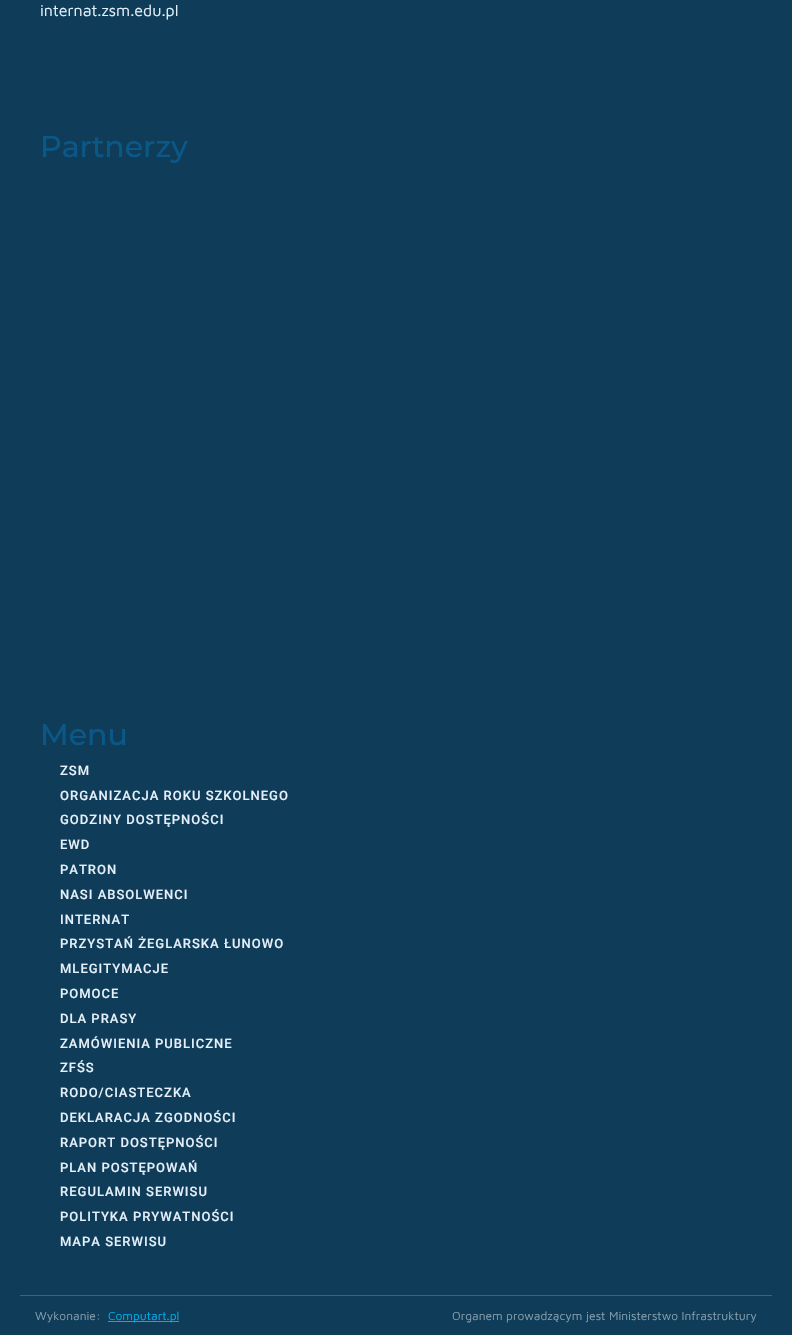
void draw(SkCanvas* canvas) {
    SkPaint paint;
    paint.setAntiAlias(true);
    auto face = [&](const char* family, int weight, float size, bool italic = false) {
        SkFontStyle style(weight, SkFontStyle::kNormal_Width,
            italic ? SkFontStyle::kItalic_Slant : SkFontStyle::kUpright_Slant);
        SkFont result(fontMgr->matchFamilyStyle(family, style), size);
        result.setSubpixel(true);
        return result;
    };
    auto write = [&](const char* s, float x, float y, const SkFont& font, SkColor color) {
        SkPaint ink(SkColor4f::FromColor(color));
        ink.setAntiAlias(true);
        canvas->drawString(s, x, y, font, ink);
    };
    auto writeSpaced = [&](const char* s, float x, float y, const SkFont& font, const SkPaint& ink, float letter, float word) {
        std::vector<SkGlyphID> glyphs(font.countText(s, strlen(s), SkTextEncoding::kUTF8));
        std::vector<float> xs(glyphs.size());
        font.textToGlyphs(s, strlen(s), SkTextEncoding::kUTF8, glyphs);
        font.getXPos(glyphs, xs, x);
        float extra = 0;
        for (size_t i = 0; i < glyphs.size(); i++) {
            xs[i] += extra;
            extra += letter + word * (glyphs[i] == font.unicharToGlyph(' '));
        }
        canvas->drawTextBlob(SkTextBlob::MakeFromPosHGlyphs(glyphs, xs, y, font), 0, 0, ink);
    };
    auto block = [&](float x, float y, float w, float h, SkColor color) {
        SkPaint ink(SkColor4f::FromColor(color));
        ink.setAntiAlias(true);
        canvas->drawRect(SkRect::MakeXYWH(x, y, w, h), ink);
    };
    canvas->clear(SkColorSetRGB(15, 61, 89));
    auto kFont1 = face("Maven Pro", 400, 16);
    write("internat.zsm.edu.pl", 40, 16, kFont1, SkColorSetRGB(230, 240, 250));
    auto kFont2 = face("Montserrat", 500, 30);
    write("Partnerzy", 40, 157, kFont2, SkColorSetRGB(10, 88, 136));
    write("Menu", 40, 745, kFont2, SkColorSetRGB(10, 88, 136));
    auto kFont3 = face("Roboto", 500, 13);
    paint.setColor(SkColorSetRGB(230, 240, 250));
    writeSpaced("ZSM", 60, 775, kFont3, paint, 1, 0);
    writeSpaced("ORGANIZACJA ROKU SZKOLNEGO", 60, 800, kFont3, paint, 1, 0);
    writeSpaced("GODZINY DOSTĘPNOŚCI", 60, 824, kFont3, paint, 1, 0);
    writeSpaced("EWD", 60, 849, kFont3, paint, 1, 0);
    writeSpaced("PATRON", 60, 874, kFont3, paint, 1, 0);
    writeSpaced("NASI ABSOLWENCI", 60, 899, kFont3, paint, 1, 0);
    writeSpaced("INTERNAT", 60, 924, kFont3, paint, 1, 0);
    writeSpaced("PRZYSTAŃ ŻEGLARSKA ŁUNOWO", 60, 948, kFont3, paint, 1, 0);
    writeSpaced("MLEGITYMACJE", 60, 973, kFont3, paint, 1, 0);
    writeSpaced("POMOCE", 60, 998, kFont3, paint, 1, 0);
    writeSpaced("DLA PRASY", 60, 1023, kFont3, paint, 1, 0);
    writeSpaced("ZAMÓWIENIA PUBLICZNE", 60, 1048, kFont3, paint, 1, 0);
    writeSpaced("ZFŚS", 60, 1072, kFont3, paint, 1, 0);
    writeSpaced("RODO/CIASTECZKA", 60, 1097, kFont3, paint, 1, 0);
    writeSpaced("DEKLARACJA ZGODNOŚCI", 60, 1122, kFont3, paint, 1, 0);
    writeSpaced("RAPORT DOSTĘPNOŚCI", 60, 1147, kFont3, paint, 1, 0);
    writeSpaced("PLAN POSTĘPOWAŃ", 60, 1172, kFont3, paint, 1, 0);
    writeSpaced("REGULAMIN SERWISU", 60, 1196, kFont3, paint, 1, 0);
    writeSpaced("POLITYKA PRYWATNOŚCI", 60, 1221, kFont3, paint, 1, 0);
    writeSpaced("MAPA SERWISU", 60, 1246, kFont3, paint, 1, 0);
    block(20, 1295, 752, 1, SkColorSetRGB(63, 100, 122));
    auto kFont4 = face("Maven Pro", 400, 12);
    write("Wykonanie:", 35, 1320, kFont4, SkColorSetRGB(135, 158, 172));
    block(108, 1321, 71, 1, SkColorSetRGB(0, 173, 239));
    write("Computart.pl", 108, 1320, kFont4, SkColorSetRGB(0, 173, 239));
    write("Organem prowadzącym jest Ministerstwo Infrastruktury", 452, 1320, kFont4, SkColorSetRGB(135, 158, 172));
}
